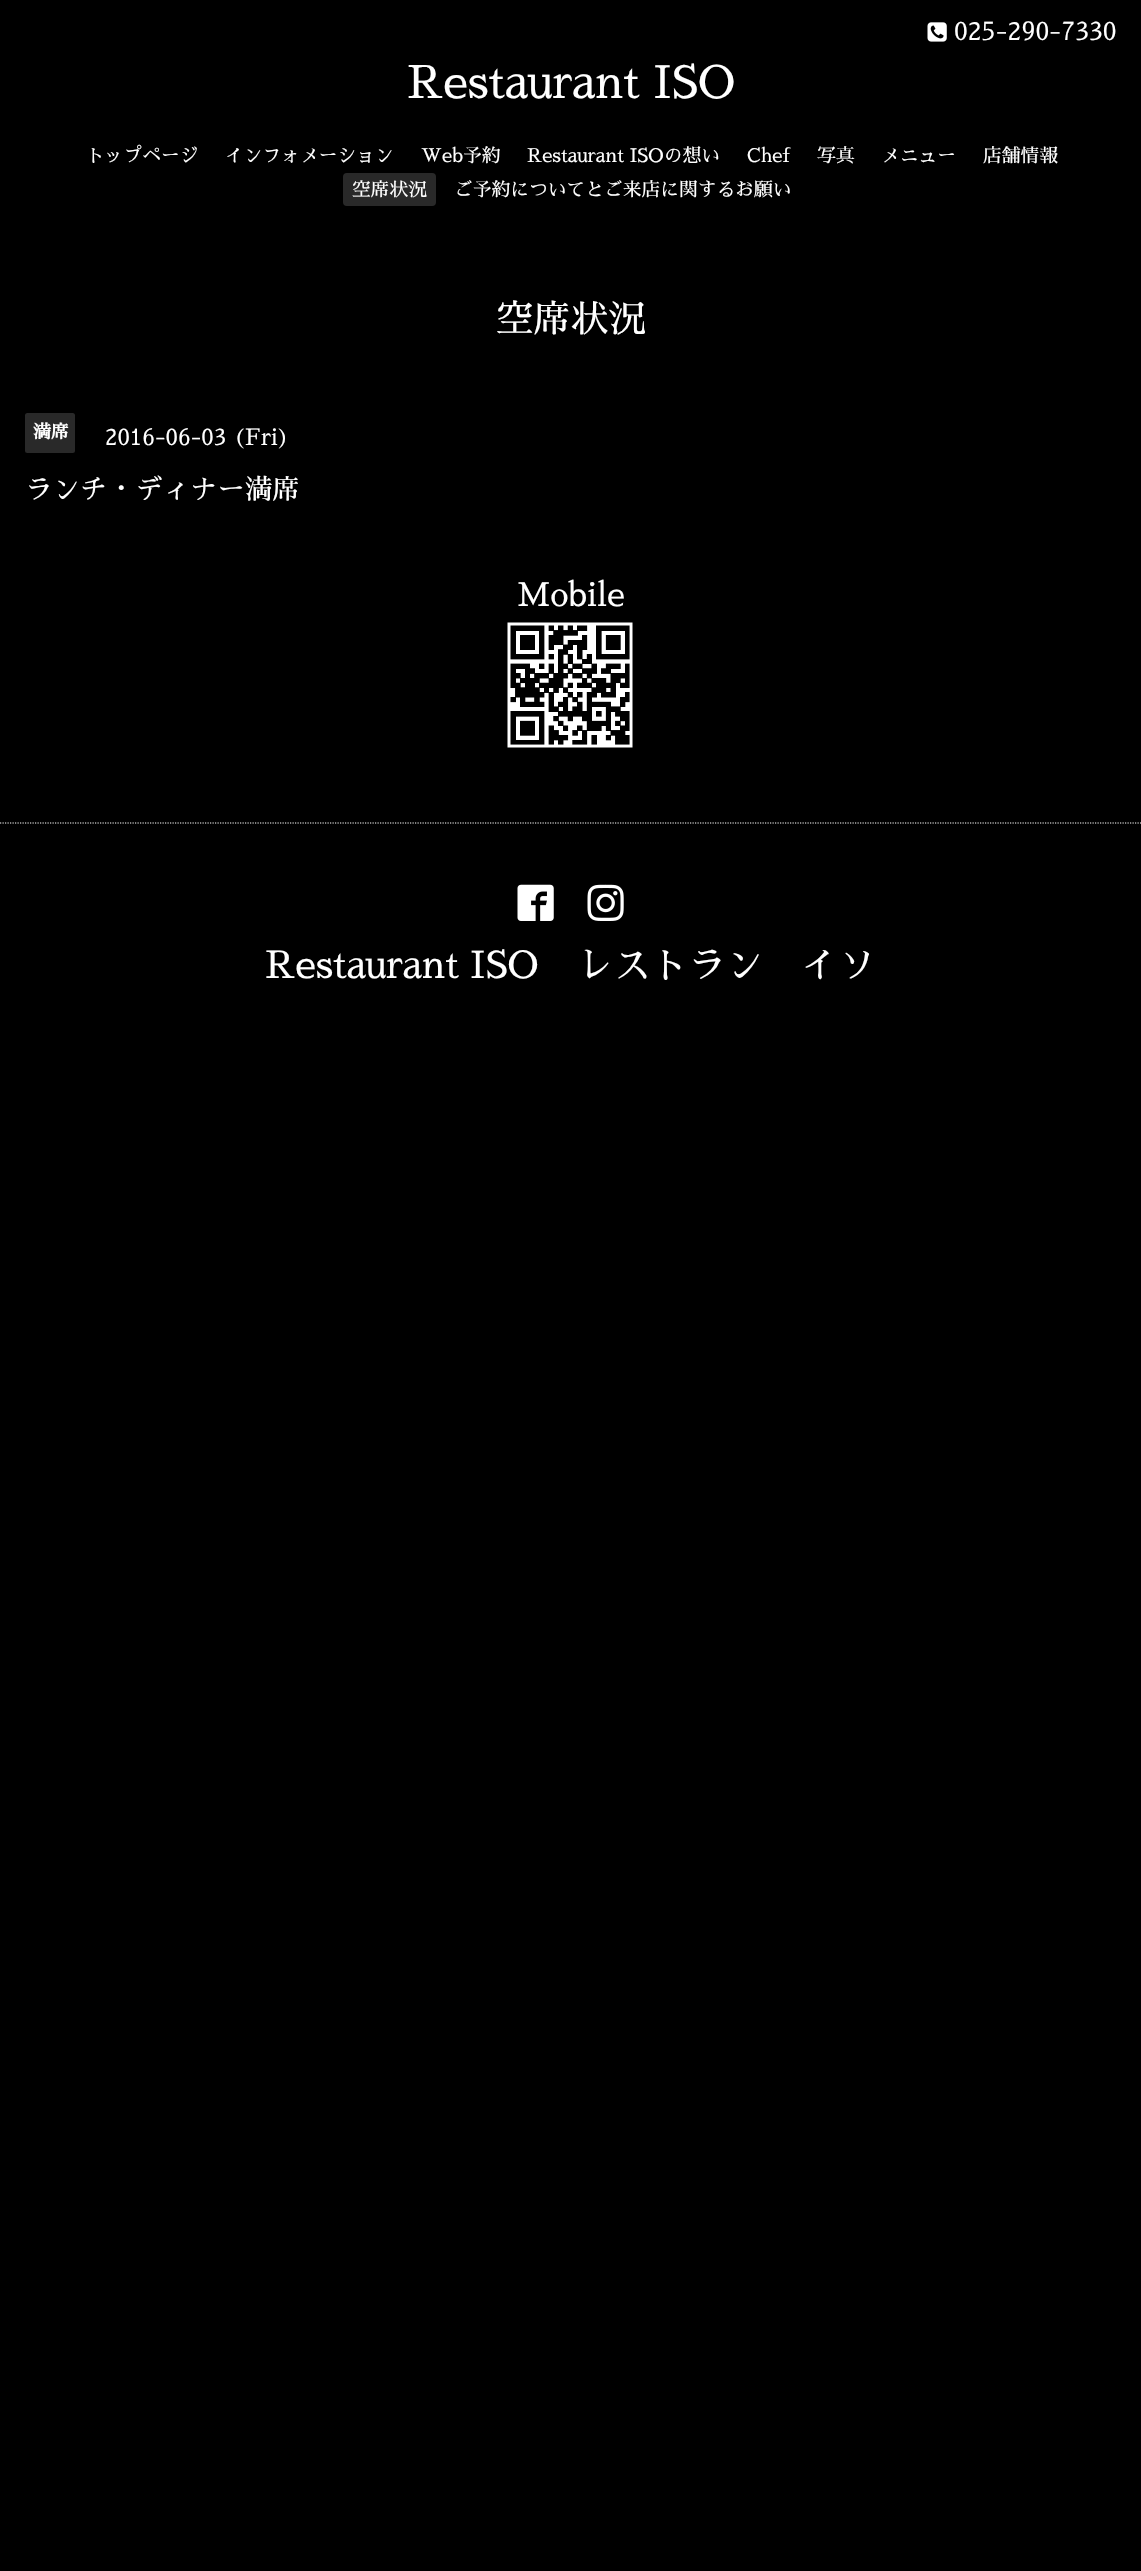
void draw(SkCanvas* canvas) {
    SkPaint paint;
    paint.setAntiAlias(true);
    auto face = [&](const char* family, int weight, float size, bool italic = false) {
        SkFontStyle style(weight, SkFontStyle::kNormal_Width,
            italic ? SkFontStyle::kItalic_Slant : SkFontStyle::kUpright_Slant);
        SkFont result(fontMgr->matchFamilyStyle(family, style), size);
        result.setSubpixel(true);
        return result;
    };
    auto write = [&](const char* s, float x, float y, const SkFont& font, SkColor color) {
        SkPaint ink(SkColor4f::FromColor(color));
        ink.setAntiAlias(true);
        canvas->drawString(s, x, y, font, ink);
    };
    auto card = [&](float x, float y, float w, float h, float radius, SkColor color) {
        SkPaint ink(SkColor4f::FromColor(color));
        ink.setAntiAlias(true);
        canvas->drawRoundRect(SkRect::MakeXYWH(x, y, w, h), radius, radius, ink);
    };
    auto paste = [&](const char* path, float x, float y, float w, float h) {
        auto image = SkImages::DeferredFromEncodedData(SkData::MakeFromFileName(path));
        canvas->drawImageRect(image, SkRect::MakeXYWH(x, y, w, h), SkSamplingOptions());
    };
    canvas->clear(SK_ColorBLACK);
    paste("pic1.png", 927, 22, 20, 20);
    auto kFont1 = face("Sawarabi Mincho", 400, 25);
    write("025-290-7330", 954, 40, kFont1, SK_ColorWHITE);
    auto kFont2 = face("Sawarabi Mincho", 400, 45);
    write("Restaurant ISO", 407, 98, kFont2, SK_ColorWHITE);
    auto kFont3 = face("Sawarabi Mincho", 400, 18.75f);
    write("トップページ", 86, 162, kFont3, SK_ColorWHITE);
    write("インフォメーション", 225, 162, kFont3, SK_ColorWHITE);
    write("Web予約", 421, 162, kFont3, SK_ColorWHITE);
    write("Restaurant ISOの想い", 527, 162, kFont3, SK_ColorWHITE);
    write("Chef", 747, 162, kFont3, SK_ColorWHITE);
    write("写真", 817, 162, kFont3, SK_ColorWHITE);
    write("メニュー", 881, 162, kFont3, SK_ColorWHITE);
    write("店舗情報", 983, 162, kFont3, SK_ColorWHITE);
    card(343, 173, 93, 33, 4, SkColorSetRGB(41, 41, 41));
    write("空席状況", 352, 196, kFont3, SK_ColorWHITE);
    write("ご予約についてとご来店に関するお願い", 454, 196, kFont3, SK_ColorWHITE);
    auto kFont4 = face("Sawarabi Mincho", 400, 37.5f);
    write("空席状況", 496, 332, kFont4, SK_ColorWHITE);
    card(25, 413, 50, 40, 2.5f, SkColorSetRGB(41, 41, 41));
    auto kFont5 = face("Sawarabi Mincho", 700, 18);
    write("満席", 33, 438, kFont5, SK_ColorWHITE);
    auto kFont6 = face("Sawarabi Mincho", 400, 22.5f);
    write("2016-06-03 (Fri)", 105, 445, kFont6, SK_ColorWHITE);
    auto kFont7 = face("Sawarabi Mincho", 400, 27.5f);
    write("ランチ・ディナー満席", 25, 499, kFont7, SK_ColorWHITE);
    auto kFont8 = face("Sawarabi Mincho", 400, 32.5f);
    write("Mobile", 517, 606, kFont8, SK_ColorWHITE);
    paste("pic2.png", 507, 622, 126, 126);
    paint.setStyle(SkPaint::kStroke_Style);
    paint.setStrokeWidth(1.2f);
    paint.setColor(SK_ColorWHITE);
    paint.setPathEffect(SkDashPathEffect::Make({{1.25f, 1.25f}}, 0));
    canvas->drawPath(SkPathBuilder().moveTo(0, 823).lineTo(1141, 823).detach(), paint);
    paint.setPathEffect(nullptr);
    paste("pic3.png", 517, 884, 37, 37);
    paste("pic4.png", 587, 884, 37, 37);
    write("Restaurant ISO　レストラン　イソ", 265, 978, kFont4, SK_ColorWHITE);
}
